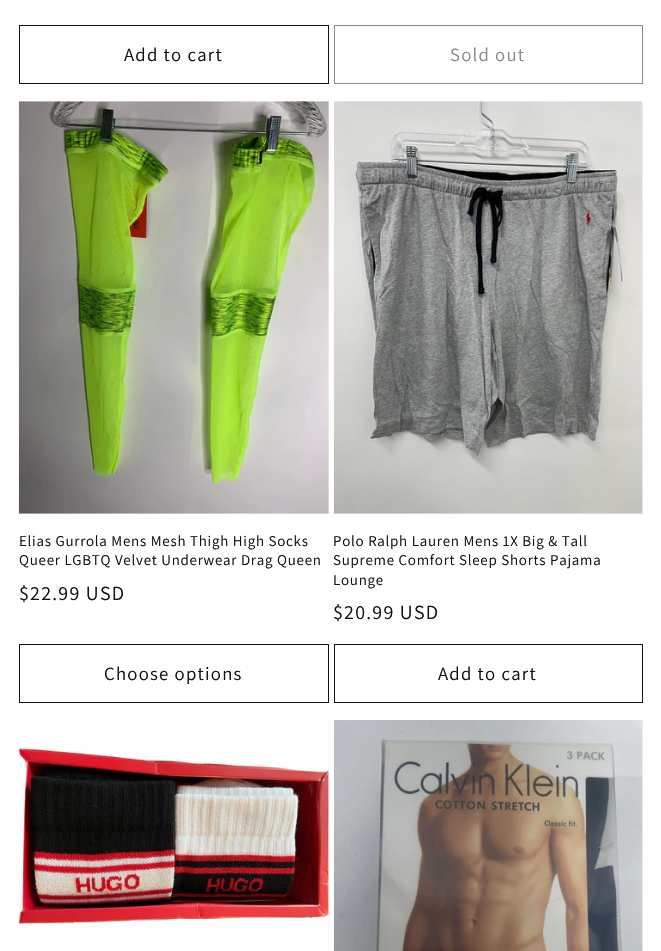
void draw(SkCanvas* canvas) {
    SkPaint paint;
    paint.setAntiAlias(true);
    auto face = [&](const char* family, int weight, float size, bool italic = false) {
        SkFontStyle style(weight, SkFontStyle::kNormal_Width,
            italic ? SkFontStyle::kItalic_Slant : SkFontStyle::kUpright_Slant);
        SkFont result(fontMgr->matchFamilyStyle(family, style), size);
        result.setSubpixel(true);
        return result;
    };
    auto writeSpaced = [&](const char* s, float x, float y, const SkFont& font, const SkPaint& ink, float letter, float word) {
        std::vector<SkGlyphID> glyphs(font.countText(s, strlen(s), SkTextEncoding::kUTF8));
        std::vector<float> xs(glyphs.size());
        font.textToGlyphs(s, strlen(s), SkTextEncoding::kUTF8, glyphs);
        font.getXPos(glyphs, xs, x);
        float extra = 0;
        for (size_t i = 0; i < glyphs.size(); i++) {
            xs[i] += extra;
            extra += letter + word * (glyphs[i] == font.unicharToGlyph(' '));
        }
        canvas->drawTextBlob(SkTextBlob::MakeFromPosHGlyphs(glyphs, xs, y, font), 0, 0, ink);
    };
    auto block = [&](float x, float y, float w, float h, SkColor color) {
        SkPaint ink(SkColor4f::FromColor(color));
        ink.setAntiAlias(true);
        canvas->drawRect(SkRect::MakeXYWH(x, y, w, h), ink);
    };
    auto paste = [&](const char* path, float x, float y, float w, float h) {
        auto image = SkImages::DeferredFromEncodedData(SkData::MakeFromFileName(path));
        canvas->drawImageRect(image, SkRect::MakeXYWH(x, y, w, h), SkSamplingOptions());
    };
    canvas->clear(SK_ColorWHITE);
    paint.setStyle(SkPaint::kStroke_Style);
    paint.setStrokeWidth(1);
    paint.setColor(SkColorSetRGB(18, 18, 18));
    canvas->drawRect(SkRect::MakeXYWH(19.5f, 25.5f, 309, 58), paint);
    auto kFont1 = face("Assistant", 400, 18.75f);
    paint.setStyle(SkPaint::kFill_Style);
    writeSpaced("Add to cart", 124, 61, kFont1, paint, 1.25f, 0);
    paint.setStyle(SkPaint::kStroke_Style);
    paint.setColor(SkColorSetRGB(137, 137, 137));
    canvas->drawRect(SkRect::MakeXYWH(334.5f, 25.5f, 308, 58), paint);
    paint.setStyle(SkPaint::kFill_Style);
    writeSpaced("Sold out", 450, 61, kFont1, paint, 1.25f, 0);
    block(19, 101, 310, 413, SkColorSetRGB(243, 243, 243));
    paste("pic1.png", 18, 101, 311, 413);
    auto kFont2 = face("Assistant", 400, 15);
    paint.setColor(SkColorSetRGB(18, 18, 18));
    writeSpaced("Elias Gurrola Mens Mesh Thigh High Socks", 19, 546, kFont2, paint, 0.75f, 0);
    writeSpaced("Queer LGBTQ Velvet Underwear Drag Queen", 19, 565, kFont2, paint, 0.75f, 0);
    auto kFont3 = face("Assistant", 400, 20);
    writeSpaced("$22.99 USD", 19, 600, kFont3, paint, 1.25f, 0);
    paint.setStyle(SkPaint::kStroke_Style);
    canvas->drawRect(SkRect::MakeXYWH(19.5f, 644.5f, 309, 58), paint);
    paint.setStyle(SkPaint::kFill_Style);
    writeSpaced("Choose options", 104, 680, kFont1, paint, 1.25f, 0);
    block(334, 101, 309, 413, SkColorSetRGB(243, 243, 243));
    paste("pic2.png", 333, 101, 310, 413);
    writeSpaced("Polo Ralph Lauren Mens 1X Big & Tall", 333, 546, kFont2, paint, 0.75f, 0);
    writeSpaced("Supreme Comfort Sleep Shorts Pajama", 333, 565, kFont2, paint, 0.75f, 0);
    writeSpaced("Lounge", 333, 585, kFont2, paint, 0.75f, 0);
    writeSpaced("$20.99 USD", 333, 619, kFont3, paint, 1.25f, 0);
    paint.setStyle(SkPaint::kStroke_Style);
    canvas->drawRect(SkRect::MakeXYWH(334.5f, 644.5f, 308, 58), paint);
    paint.setStyle(SkPaint::kFill_Style);
    writeSpaced("Add to cart", 438, 680, kFont1, paint, 1.25f, 0);
    block(328, 720, 1, 231, SkColorSetRGB(243, 243, 243));
    paste("pic3.png", 18, 720, 311, 231);
    block(642, 720, 1, 231, SkColorSetRGB(243, 243, 243));
    paste("pic4.png", 333, 720, 310, 231);
}
